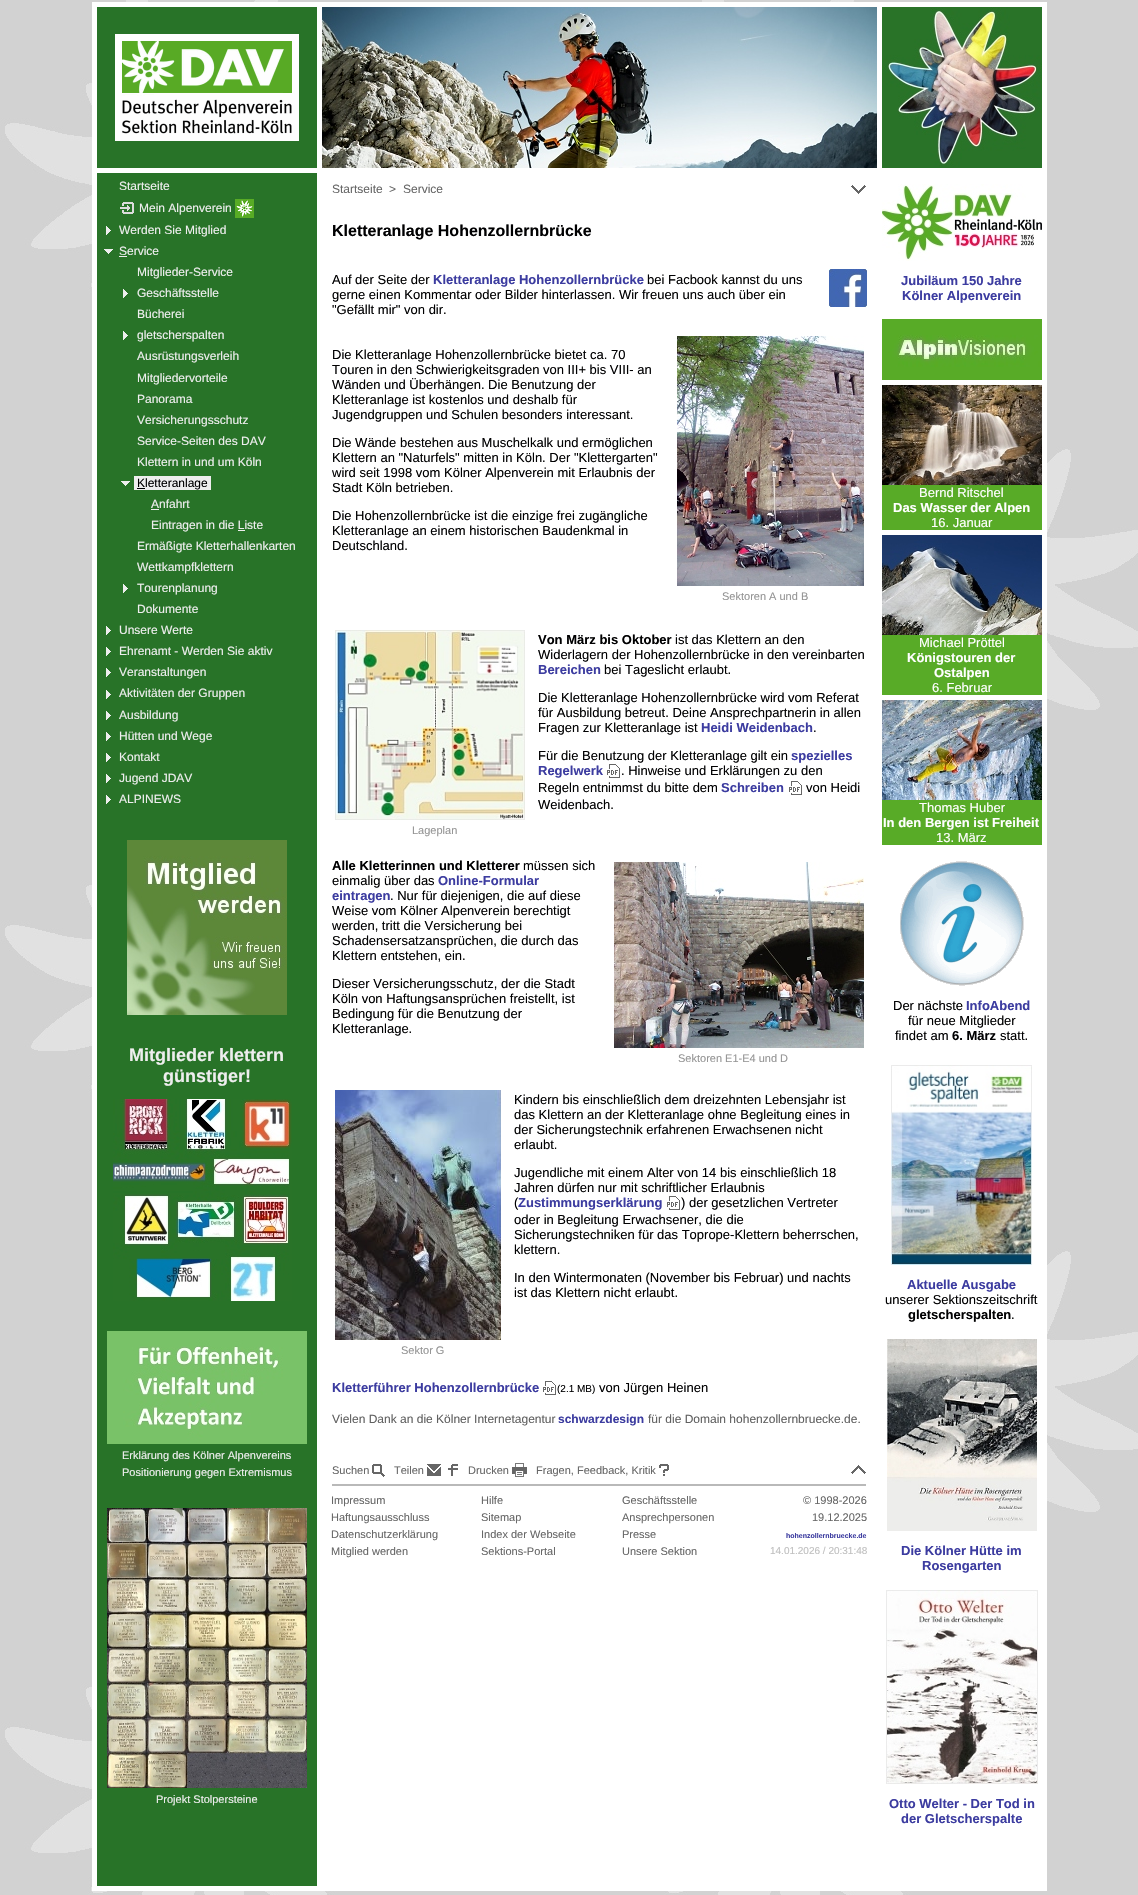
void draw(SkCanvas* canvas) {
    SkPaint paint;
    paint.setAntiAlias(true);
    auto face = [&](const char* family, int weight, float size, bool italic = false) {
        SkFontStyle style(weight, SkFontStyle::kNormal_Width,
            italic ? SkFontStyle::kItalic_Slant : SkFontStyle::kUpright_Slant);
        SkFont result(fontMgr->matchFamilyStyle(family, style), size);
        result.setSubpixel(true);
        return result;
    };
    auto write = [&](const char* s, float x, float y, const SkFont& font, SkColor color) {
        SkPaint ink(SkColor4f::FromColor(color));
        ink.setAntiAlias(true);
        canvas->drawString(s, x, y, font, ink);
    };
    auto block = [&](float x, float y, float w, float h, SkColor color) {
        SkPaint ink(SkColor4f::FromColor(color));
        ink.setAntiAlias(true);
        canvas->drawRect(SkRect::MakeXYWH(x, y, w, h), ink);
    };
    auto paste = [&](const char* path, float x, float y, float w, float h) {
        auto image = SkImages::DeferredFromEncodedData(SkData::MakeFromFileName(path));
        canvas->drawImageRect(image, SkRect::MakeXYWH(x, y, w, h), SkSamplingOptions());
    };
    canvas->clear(SK_ColorWHITE);
    paste("pic1.png", 0, 0, 1138, 1895);
    block(92, 2, 955, 1889, SK_ColorWHITE);
    block(97, 7, 220, 1879, SkColorSetRGB(40, 115, 40));
    paste("pic2.png", 115, 34, 184, 107);
    block(97, 168, 220, 5, SK_ColorWHITE);
    auto kFont1 = face("Liberation Sans", 400, 12);
    write("Startseite", 119, 190, kFont1, SkColorSetRGB(238, 238, 238));
    paste("pic3.png", 120, 202, 14, 12);
    write("Mein Alpenverein", 139, 212, kFont1, SkColorSetRGB(238, 238, 238));
    paste("pic4.png", 235, 199, 19, 19);
    paste("pic5.png", 106, 226, 5, 9);
    write("Werden Sie Mitglied", 119, 234, kFont1, SkColorSetRGB(238, 238, 238));
    paste("pic6.png", 104, 249, 9, 5);
    write("Service", 119, 255, kFont1, SkColorSetRGB(238, 238, 238));
    block(119, 256, 8, 1, SkColorSetRGB(238, 238, 238));
    write("Mitglieder-Service", 137, 276, kFont1, SkColorSetRGB(238, 238, 238));
    paste("pic5.png", 123, 289, 5, 9);
    write("Geschäftsstelle", 137, 297, kFont1, SkColorSetRGB(238, 238, 238));
    write("Bücherei", 137, 318, kFont1, SkColorSetRGB(238, 238, 238));
    paste("pic5.png", 123, 331, 5, 9);
    write("gletscherspalten", 137, 339, kFont1, SkColorSetRGB(238, 238, 238));
    write("Ausrüstungsverleih", 137, 360, kFont1, SkColorSetRGB(238, 238, 238));
    write("Mitgliedervorteile", 137, 382, kFont1, SkColorSetRGB(238, 238, 238));
    write("Panorama", 137, 403, kFont1, SkColorSetRGB(238, 238, 238));
    write("Versicherungsschutz", 137, 424, kFont1, SkColorSetRGB(238, 238, 238));
    write("Service-Seiten des DAV", 137, 445, kFont1, SkColorSetRGB(238, 238, 238));
    write("Klettern in und um Köln", 137, 466, kFont1, SkColorSetRGB(238, 238, 238));
    paste("pic6.png", 121, 481, 9, 5);
    block(134, 476, 77, 14, SkColorSetRGB(238, 238, 238));
    block(137, 488, 8, 1, SkColorSetRGB(0, 0, 1));
    write("Kletteranlage", 137, 487, kFont1, SkColorSetRGB(0, 0, 1));
    write("Anfahrt", 151, 508, kFont1, SkColorSetRGB(238, 238, 238));
    block(151, 509, 8, 1, SkColorSetRGB(238, 238, 238));
    write("Eintragen in die Liste", 151, 529, kFont1, SkColorSetRGB(238, 238, 238));
    block(238, 530, 7, 1, SkColorSetRGB(238, 238, 238));
    write("Ermäßigte Kletterhallenkarten", 137, 550, kFont1, SkColorSetRGB(238, 238, 238));
    write("Wettkampfklettern", 137, 571, kFont1, SkColorSetRGB(238, 238, 238));
    paste("pic5.png", 123, 584, 5, 9);
    write("Tourenplanung", 137, 592, kFont1, SkColorSetRGB(238, 238, 238));
    write("Dokumente", 137, 613, kFont1, SkColorSetRGB(238, 238, 238));
    paste("pic5.png", 106, 626, 5, 9);
    write("Unsere Werte", 119, 634, kFont1, SkColorSetRGB(238, 238, 238));
    paste("pic5.png", 106, 647, 5, 9);
    write("Ehrenamt - Werden Sie aktiv", 119, 655, kFont1, SkColorSetRGB(238, 238, 238));
    paste("pic5.png", 106, 668, 5, 9);
    write("Veranstaltungen", 119, 676, kFont1, SkColorSetRGB(238, 238, 238));
    paste("pic5.png", 106, 690, 5, 9);
    write("Aktivitäten der Gruppen", 119, 697, kFont1, SkColorSetRGB(238, 238, 238));
    paste("pic5.png", 106, 711, 5, 9);
    write("Ausbildung", 119, 719, kFont1, SkColorSetRGB(238, 238, 238));
    paste("pic5.png", 106, 732, 5, 9);
    write("Hütten und Wege", 119, 740, kFont1, SkColorSetRGB(238, 238, 238));
    paste("pic5.png", 106, 753, 5, 9);
    write("Kontakt", 119, 761, kFont1, SkColorSetRGB(238, 238, 238));
    paste("pic5.png", 106, 774, 5, 9);
    write("Jugend JDAV", 119, 782, kFont1, SkColorSetRGB(238, 238, 238));
    paste("pic5.png", 106, 795, 5, 9);
    write("ALPINEWS", 119, 803, kFont1, SkColorSetRGB(238, 238, 238));
    paste("pic7.png", 127, 840, 160, 175);
    auto kFont2 = face("Liberation Sans", 700, 18);
    write("Mitglieder klettern", 129, 1061, kFont2, SkColorSetRGB(238, 238, 238));
    write("günstiger!", 163, 1082, kFont2, SkColorSetRGB(238, 238, 238));
    paste("pic8.png", 113, 1099, 179, 202);
    paste("pic9.png", 107, 1331, 200, 113);
    auto kFont3 = face("Liberation Sans", 400, 11);
    write("Erklärung des Kölner Alpenvereins", 122, 1459, kFont3, SkColorSetRGB(238, 238, 238));
    write("Positionierung gegen Extremismus", 122, 1476, kFont3, SkColorSetRGB(238, 238, 238));
    paste("pic10.png", 107, 1508, 200, 280);
    write("Projekt Stolpersteine", 156, 1803, kFont3, SkColorSetRGB(238, 238, 238));
    paste("pic11.png", 322, 7, 555, 161);
    write("Startseite", 332, 193, kFont1, SkColorSetRGB(102, 102, 102));
    write(">", 389, 193, kFont1, SkColorSetRGB(102, 102, 102));
    write("Service", 403, 193, kFont1, SkColorSetRGB(102, 102, 102));
    paste("pic12.png", 851, 185, 15, 9);
    auto kFont4 = face("Liberation Sans", 700, 16);
    write("Kletteranlage Hohenzollernbrücke", 332, 236, kFont4, SkColorSetRGB(0, 0, 1));
    auto kFont5 = face("Liberation Sans", 400, 13);
    write("Auf der Seite der", 332, 284, kFont5, SkColorSetRGB(0, 0, 1));
    auto kFont6 = face("Liberation Sans", 700, 13);
    write("Kletteranlage Hohenzollernbrücke", 433, 284, kFont6, SkColorSetRGB(60, 60, 160));
    write("bei Facbook kannst du uns", 647, 284, kFont5, SkColorSetRGB(0, 0, 1));
    paste("pic13.png", 829, 269, 38, 38);
    write("gerne einen Kommentar oder Bilder hinterlassen. Wir freuen uns auch über ein", 332, 299, kFont5, SkColorSetRGB(0, 0, 1));
    write("\"Gefällt mir\" von dir.", 332, 314, kFont5, SkColorSetRGB(0, 0, 1));
    write("Die Kletteranlage Hohenzollernbrücke bietet ca. 70", 332, 359, kFont5, SkColorSetRGB(0, 0, 1));
    write("Touren in den Schwierigkeitsgraden von III+ bis VIII- an", 332, 374, kFont5, SkColorSetRGB(0, 0, 1));
    write("Wänden und Überhängen. Die Benutzung der", 332, 389, kFont5, SkColorSetRGB(0, 0, 1));
    write("Kletteranlage ist kostenlos und deshalb für", 332, 404, kFont5, SkColorSetRGB(0, 0, 1));
    write("Jugendgruppen und Schulen besonders interessant.", 332, 419, kFont5, SkColorSetRGB(0, 0, 1));
    write("Die Wände bestehen aus Muschelkalk und ermöglichen", 332, 447, kFont5, SkColorSetRGB(0, 0, 1));
    write("Klettern an \"Naturfels\" mitten in Köln. Der \"Klettergarten\"", 332, 462, kFont5, SkColorSetRGB(0, 0, 1));
    write("wird seit 1998 vom Kölner Alpenverein mit Erlaubnis der", 332, 477, kFont5, SkColorSetRGB(0, 0, 1));
    write("Stadt Köln betrieben.", 332, 492, kFont5, SkColorSetRGB(0, 0, 1));
    write("Die Hohenzollernbrücke ist die einzige frei zugängliche", 332, 520, kFont5, SkColorSetRGB(0, 0, 1));
    write("Kletteranlage an einem historischen Baudenkmal in", 332, 535, kFont5, SkColorSetRGB(0, 0, 1));
    write("Deutschland.", 332, 550, kFont5, SkColorSetRGB(0, 0, 1));
    write("Von März bis Oktober", 538, 644, kFont6, SkColorSetRGB(0, 0, 1));
    write("ist das Klettern an den", 675, 644, kFont5, SkColorSetRGB(0, 0, 1));
    write("Widerlagern der Hohenzollernbrücke in den vereinbarten", 538, 659, kFont5, SkColorSetRGB(0, 0, 1));
    write("Bereichen", 538, 674, kFont6, SkColorSetRGB(60, 60, 160));
    write("bei Tageslicht erlaubt.", 604, 674, kFont5, SkColorSetRGB(0, 0, 1));
    paste("pic14.png", 335, 630, 190, 190);
    write("Lageplan", 412, 834, kFont3, SkColorSetRGB(148, 148, 148));
    paste("pic15.png", 677, 336, 187, 250);
    write("Sektoren A und B", 722, 600, kFont3, SkColorSetRGB(148, 148, 148));
    write("Die Kletteranlage Hohenzollernbrücke wird vom Referat", 538, 702, kFont5, SkColorSetRGB(0, 0, 1));
    write("für Ausbildung betreut. Deine Ansprechpartnerin in allen", 538, 717, kFont5, SkColorSetRGB(0, 0, 1));
    write("Fragen zur Kletteranlage ist", 538, 732, kFont5, SkColorSetRGB(0, 0, 1));
    write("Heidi Weidenbach", 701, 732, kFont6, SkColorSetRGB(60, 60, 160));
    write(".", 813, 732, kFont5, SkColorSetRGB(0, 0, 1));
    write("Für die Benutzung der Kletteranlage gilt ein", 538, 760, kFont5, SkColorSetRGB(0, 0, 1));
    write("spezielles", 791, 760, kFont6, SkColorSetRGB(60, 60, 160));
    write("Regelwerk", 538, 775, kFont6, SkColorSetRGB(60, 60, 160));
    paste("pic16.png", 607, 764, 13, 14);
    write(". Hinweise und Erklärungen zu den", 621, 775, kFont5, SkColorSetRGB(0, 0, 1));
    write("Regeln entnimmst du bitte dem", 538, 792, kFont5, SkColorSetRGB(0, 0, 1));
    write("Schreiben", 721, 792, kFont6, SkColorSetRGB(60, 60, 160));
    paste("pic16.png", 789, 781, 13, 14);
    write("von Heidi", 806, 792, kFont5, SkColorSetRGB(0, 0, 1));
    write("Weidenbach.", 538, 809, kFont5, SkColorSetRGB(0, 0, 1));
    write("Alle Kletterinnen und Kletterer", 332, 870, kFont6, SkColorSetRGB(0, 0, 1));
    write("müssen sich", 523, 870, kFont5, SkColorSetRGB(0, 0, 1));
    write("einmalig über das", 332, 885, kFont5, SkColorSetRGB(0, 0, 1));
    write("Online-Formular", 438, 885, kFont6, SkColorSetRGB(60, 60, 160));
    write("eintragen", 332, 900, kFont6, SkColorSetRGB(60, 60, 160));
    write(". Nur für diejenigen, die auf diese", 390, 900, kFont5, SkColorSetRGB(0, 0, 1));
    write("Weise vom Kölner Alpenverein berechtigt", 332, 915, kFont5, SkColorSetRGB(0, 0, 1));
    write("werden, tritt die Versicherung bei", 332, 930, kFont5, SkColorSetRGB(0, 0, 1));
    write("Schadensersatzansprüchen, die durch das", 332, 945, kFont5, SkColorSetRGB(0, 0, 1));
    write("Klettern entstehen, ein.", 332, 960, kFont5, SkColorSetRGB(0, 0, 1));
    write("Dieser Versicherungsschutz, der die Stadt", 332, 988, kFont5, SkColorSetRGB(0, 0, 1));
    write("Köln von Haftungsansprüchen freistellt, ist", 332, 1003, kFont5, SkColorSetRGB(0, 0, 1));
    write("Bedingung für die Benutzung der", 332, 1018, kFont5, SkColorSetRGB(0, 0, 1));
    write("Kletteranlage.", 332, 1033, kFont5, SkColorSetRGB(0, 0, 1));
    paste("pic17.png", 614, 862, 250, 186);
    write("Sektoren E1-E4 und D", 678, 1062, kFont3, SkColorSetRGB(148, 148, 148));
    write("Kindern bis einschließlich dem dreizehnten Lebensjahr ist", 514, 1104, kFont5, SkColorSetRGB(0, 0, 1));
    write("das Klettern an der Kletteranlage ohne Begleitung eines in", 514, 1119, kFont5, SkColorSetRGB(0, 0, 1));
    write("der Sicherungstechnik erfahrenen Erwachsenen nicht", 514, 1134, kFont5, SkColorSetRGB(0, 0, 1));
    write("erlaubt.", 514, 1149, kFont5, SkColorSetRGB(0, 0, 1));
    paste("pic18.png", 335, 1090, 166, 250);
    write("Sektor G", 401, 1354, kFont3, SkColorSetRGB(148, 148, 148));
    write("Jugendliche mit einem Alter von 14 bis einschließlich 18", 514, 1177, kFont5, SkColorSetRGB(0, 0, 1));
    write("Jahren dürfen nur mit schriftlicher Erlaubnis", 514, 1192, kFont5, SkColorSetRGB(0, 0, 1));
    write("(", 514, 1207, kFont5, SkColorSetRGB(0, 0, 1));
    write("Zustimmungserklärung", 518, 1207, kFont6, SkColorSetRGB(60, 60, 160));
    paste("pic16.png", 667, 1196, 13, 14);
    write(") der gesetzlichen Vertreter", 681, 1207, kFont5, SkColorSetRGB(0, 0, 1));
    write("oder in Begleitung Erwachsener, die die", 514, 1224, kFont5, SkColorSetRGB(0, 0, 1));
    write("Sicherungstechniken für das Toprope-Klettern beherrschen,", 514, 1239, kFont5, SkColorSetRGB(0, 0, 1));
    write("klettern.", 514, 1254, kFont5, SkColorSetRGB(0, 0, 1));
    write("In den Wintermonaten (November bis Februar) und nachts", 514, 1282, kFont5, SkColorSetRGB(0, 0, 1));
    write("ist das Klettern nicht erlaubt.", 514, 1297, kFont5, SkColorSetRGB(0, 0, 1));
    write("Kletterführer Hohenzollernbrücke", 332, 1392, kFont6, SkColorSetRGB(60, 60, 160));
    paste("pic16.png", 543, 1381, 13, 14);
    auto kFont7 = face("Liberation Sans", 400, 10);
    write("(2.1 MB)", 557, 1392, kFont7, SkColorSetRGB(0, 0, 1));
    write("von Jürgen Heinen", 599, 1392, kFont5, SkColorSetRGB(0, 0, 1));
    write("Vielen Dank an die Kölner Internetagentur", 332, 1423, kFont1, SkColorSetRGB(96, 96, 96));
    auto kFont8 = face("Liberation Sans", 700, 12);
    write("schwarzdesign", 558, 1423, kFont8, SkColorSetRGB(60, 60, 160));
    write("für die Domain hohenzollernbruecke.de.", 648, 1423, kFont1, SkColorSetRGB(96, 96, 96));
    write("Suchen", 332, 1474, kFont3, SkColorSetRGB(102, 102, 102));
    paste("pic19.png", 372, 1464, 13, 13);
    write("Teilen", 394, 1474, kFont3, SkColorSetRGB(102, 102, 102));
    paste("pic20.png", 427, 1464, 14, 12);
    paste("pic21.png", 448, 1464, 10, 12);
    write("Drucken", 468, 1474, kFont3, SkColorSetRGB(102, 102, 102));
    paste("pic22.png", 512, 1463, 15, 14);
    write("Fragen, Feedback, Kritik", 536, 1474, kFont3, SkColorSetRGB(102, 102, 102));
    paste("pic23.png", 659, 1464, 10, 12);
    paste("pic24.png", 851, 1465, 15, 9);
    block(332, 1484, 534, 1, SkColorSetRGB(185, 185, 185));
    block(865, 1484, 1, 2, SkColorSetRGB(185, 185, 185));
    block(332, 1485, 534, 1, SkColorSetRGB(185, 185, 185));
    write("Impressum", 331, 1504, kFont3, SkColorSetRGB(102, 102, 102));
    write("Haftungsausschluss", 331, 1521, kFont3, SkColorSetRGB(102, 102, 102));
    write("Datenschutzerklärung", 331, 1538, kFont3, SkColorSetRGB(102, 102, 102));
    write("Mitglied werden", 331, 1555, kFont3, SkColorSetRGB(102, 102, 102));
    write("Hilfe", 481, 1504, kFont3, SkColorSetRGB(102, 102, 102));
    write("Sitemap", 481, 1521, kFont3, SkColorSetRGB(102, 102, 102));
    write("Index der Webseite", 481, 1538, kFont3, SkColorSetRGB(102, 102, 102));
    write("Sektions-Portal", 481, 1555, kFont3, SkColorSetRGB(102, 102, 102));
    write("Geschäftsstelle", 622, 1504, kFont3, SkColorSetRGB(102, 102, 102));
    write("Ansprechpersonen", 622, 1521, kFont3, SkColorSetRGB(102, 102, 102));
    write("Presse", 622, 1538, kFont3, SkColorSetRGB(102, 102, 102));
    write("Unsere Sektion", 622, 1555, kFont3, SkColorSetRGB(102, 102, 102));
    write("© 1998-2026", 803, 1504, kFont3, SkColorSetRGB(102, 102, 102));
    write("19.12.2025", 812, 1521, kFont3, SkColorSetRGB(102, 102, 102));
    auto kFont9 = face("Liberation Sans", 700, 7);
    write("hohenzollernbruecke.de", 786, 1538, kFont9, SkColorSetRGB(60, 60, 160));
    write("14.01.2026 / 20:31:48", 770, 1554, kFont7, SkColorSetRGB(192, 192, 192));
    paste("pic25.png", 882, 7, 160, 161);
    paste("pic26.png", 882, 184, 160, 77);
    write("Jubiläum 150 Jahre", 901, 285, kFont6, SkColorSetRGB(60, 60, 160));
    write("Kölner Alpenverein", 902, 300, kFont6, SkColorSetRGB(60, 60, 160));
    paste("pic27.png", 882, 319, 160, 61);
    block(882, 485, 160, 45, SkColorSetRGB(88, 171, 39));
    paste("pic28.png", 882, 385, 160, 100);
    write("Bernd Ritschel", 919, 497, kFont5, SK_ColorWHITE);
    write("Das Wasser der Alpen", 893, 512, kFont6, SK_ColorWHITE);
    write("16. Januar", 931, 527, kFont5, SK_ColorWHITE);
    block(882, 635, 160, 60, SkColorSetRGB(88, 171, 39));
    paste("pic29.png", 882, 535, 160, 100);
    write("Michael Pröttel", 919, 647, kFont5, SK_ColorWHITE);
    write("Königstouren der", 907, 662, kFont6, SK_ColorWHITE);
    write("Ostalpen", 934, 677, kFont6, SK_ColorWHITE);
    write("6. Februar", 932, 692, kFont5, SK_ColorWHITE);
    block(882, 800, 160, 45, SkColorSetRGB(88, 171, 39));
    paste("pic30.png", 882, 700, 160, 100);
    write("Thomas Huber", 919, 812, kFont5, SK_ColorWHITE);
    write("In den Bergen ist Freiheit", 883, 827, kFont6, SK_ColorWHITE);
    write("13. März", 936, 842, kFont5, SK_ColorWHITE);
    paste("pic31.png", 900, 861, 124, 125);
    write("Der nächste", 893, 1010, kFont5, SkColorSetRGB(0, 0, 1));
    write("InfoAbend", 966, 1010, kFont6, SkColorSetRGB(60, 60, 160));
    write("für neue Mitglieder", 908, 1025, kFont5, SkColorSetRGB(0, 0, 1));
    write("findet am", 895, 1040, kFont5, SkColorSetRGB(0, 0, 1));
    write("6. März", 952, 1040, kFont6, SkColorSetRGB(0, 0, 1));
    write("statt.", 1000, 1040, kFont5, SkColorSetRGB(0, 0, 1));
    paste("pic32.png", 891, 1065, 141, 200);
    write("Aktuelle Ausgabe", 907, 1289, kFont6, SkColorSetRGB(60, 60, 160));
    write("unserer Sektionszeitschrift", 885, 1304, kFont5, SkColorSetRGB(0, 0, 1));
    write("gletscherspalten", 908, 1319, kFont6, SkColorSetRGB(0, 0, 1));
    write(".", 1011, 1319, kFont5, SkColorSetRGB(0, 0, 1));
    paste("pic33.png", 887, 1339, 150, 192);
    write("Die Kölner Hütte im", 901, 1555, kFont6, SkColorSetRGB(60, 60, 160));
    write("Rosengarten", 922, 1570, kFont6, SkColorSetRGB(60, 60, 160));
    paste("pic34.png", 886, 1590, 152, 194);
    write("Otto Welter - Der Tod in", 889, 1808, kFont6, SkColorSetRGB(60, 60, 160));
    write("der Gletscherspalte", 901, 1823, kFont6, SkColorSetRGB(60, 60, 160));
}
